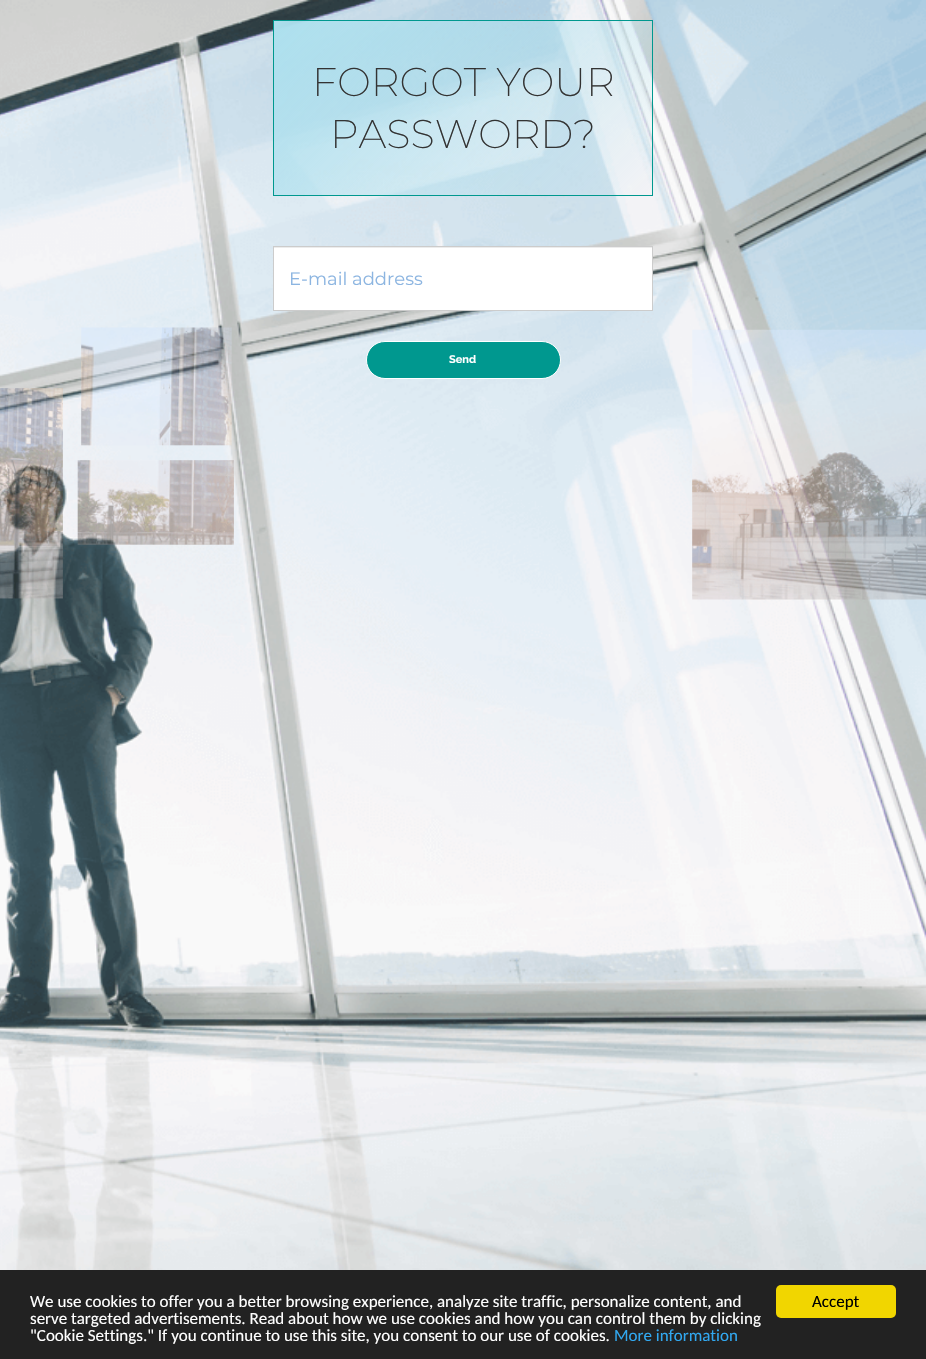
void draw(SkCanvas* canvas) {
    SkPaint paint;
    paint.setAntiAlias(true);
    auto face = [&](const char* family, int weight, float size, bool italic = false) {
        SkFontStyle style(weight, SkFontStyle::kNormal_Width,
            italic ? SkFontStyle::kItalic_Slant : SkFontStyle::kUpright_Slant);
        SkFont result(fontMgr->matchFamilyStyle(family, style), size);
        result.setSubpixel(true);
        return result;
    };
    auto write = [&](const char* s, float x, float y, const SkFont& font, SkColor color) {
        SkPaint ink(SkColor4f::FromColor(color));
        ink.setAntiAlias(true);
        canvas->drawString(s, x, y, font, ink);
    };
    auto block = [&](float x, float y, float w, float h, SkColor color) {
        SkPaint ink(SkColor4f::FromColor(color));
        ink.setAntiAlias(true);
        canvas->drawRect(SkRect::MakeXYWH(x, y, w, h), ink);
    };
    auto card = [&](float x, float y, float w, float h, float radius, SkColor color) {
        SkPaint ink(SkColor4f::FromColor(color));
        ink.setAntiAlias(true);
        canvas->drawRoundRect(SkRect::MakeXYWH(x, y, w, h), radius, radius, ink);
    };
    auto paste = [&](const char* path, float x, float y, float w, float h) {
        auto image = SkImages::DeferredFromEncodedData(SkData::MakeFromFileName(path));
        canvas->drawImageRect(image, SkRect::MakeXYWH(x, y, w, h), SkSamplingOptions());
    };
    canvas->clear(SK_ColorWHITE);
    paste("pic1.png", 0, 0, 926, 1270);
    paint.setStyle(SkPaint::kStroke_Style);
    paint.setStrokeWidth(1);
    paint.setColor(SkColorSetRGB(0, 152, 143));
    canvas->drawRect(SkRect::MakeXYWH(273.5f, 20.5f, 379, 175), paint);
    auto kFont1 = face("Montserrat", 200, 40);
    write("FORGOT YOUR", 312, 96, kFont1, SkColorSetRGB(51, 51, 51));
    write("PASSWORD?", 330, 148, kFont1, SkColorSetRGB(51, 51, 51));
    block(274, 248, 378, 62, SK_ColorWHITE);
    block(274, 247, 378, 1, SkColorSetRGB(236, 236, 236));
    paint.setColor(SkColorSetRGB(204, 204, 204));
    canvas->drawRect(SkRect::MakeXYWH(273.5f, 246.5f, 379, 64), paint);
    auto kFont2 = face("Montserrat", 400, 18);
    write("E-mail address", 289, 285, kFont2, SkColorSetRGB(140, 181, 225));
    paste("pic2.png", 0, 327, 926, 273);
    paint.setStyle(SkPaint::kFill_Style);
    paint.setColor(SkColorSetRGB(0, 152, 143));
    canvas->drawRoundRect(SkRect::MakeXYWH(366.5f, 341.5f, 194, 37), 18.5f, 18.5f, paint);
    paint.setStyle(SkPaint::kStroke_Style);
    paint.setColor(SK_ColorWHITE);
    canvas->drawRoundRect(SkRect::MakeXYWH(366.5f, 341.5f, 194, 37), 18.5f, 18.5f, paint);
    auto kFont3 = face("Raleway", 700, 11);
    write("Send", 449, 363, kFont3, SK_ColorWHITE);
    block(0, 1270, 926, 89, SkColorSetRGB(34, 34, 34));
    auto kFont4 = face("Carlito", 400, 17);
    write("We use cookies to offer you a better browsing experience, analyze site traffic, personalize content, and", 30, 1307, kFont4, SK_ColorWHITE);
    write("serve targeted advertisements. Read about how we use cookies and how you can control them by clicking", 30, 1324, kFont4, SK_ColorWHITE);
    write("\"Cookie Settings.\" If you continue to use this site, you consent to our use of cookies.", 30, 1341, kFont4, SK_ColorWHITE);
    write("More information", 614, 1341, kFont4, SkColorSetRGB(49, 168, 240));
    card(776, 1285, 120, 33, 5, SkColorSetRGB(241, 214, 0));
    write("Accept", 812, 1307, kFont4, SK_ColorBLACK);
}
